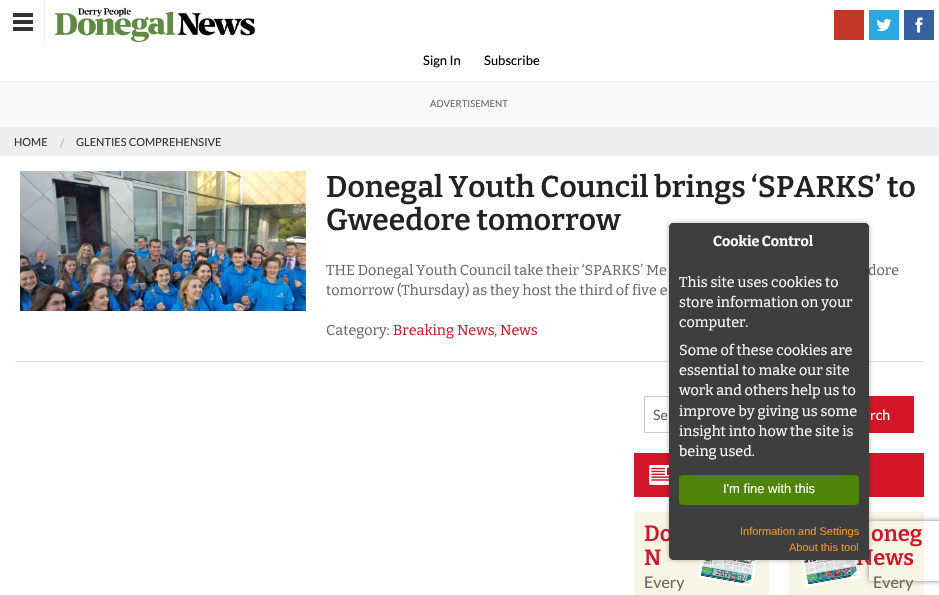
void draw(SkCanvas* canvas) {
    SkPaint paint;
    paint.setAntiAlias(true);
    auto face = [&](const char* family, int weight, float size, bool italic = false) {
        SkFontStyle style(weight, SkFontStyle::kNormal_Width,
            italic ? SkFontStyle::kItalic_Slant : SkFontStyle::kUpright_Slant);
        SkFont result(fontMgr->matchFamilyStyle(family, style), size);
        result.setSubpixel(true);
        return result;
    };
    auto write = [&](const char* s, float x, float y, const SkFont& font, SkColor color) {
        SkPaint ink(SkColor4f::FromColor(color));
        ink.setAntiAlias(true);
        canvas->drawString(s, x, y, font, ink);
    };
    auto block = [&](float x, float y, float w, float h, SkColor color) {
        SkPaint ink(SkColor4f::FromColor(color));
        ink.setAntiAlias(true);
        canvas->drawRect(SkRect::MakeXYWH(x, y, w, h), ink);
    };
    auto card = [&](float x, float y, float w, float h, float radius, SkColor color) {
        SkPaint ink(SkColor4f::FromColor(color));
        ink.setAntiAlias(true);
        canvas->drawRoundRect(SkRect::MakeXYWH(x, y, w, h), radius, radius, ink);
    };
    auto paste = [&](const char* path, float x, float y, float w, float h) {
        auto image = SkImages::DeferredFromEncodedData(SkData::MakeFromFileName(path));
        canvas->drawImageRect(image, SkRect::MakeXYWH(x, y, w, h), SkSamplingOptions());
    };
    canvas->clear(SkColorSetRGB(249, 249, 249));
    block(0, 0, 939, 81, SK_ColorWHITE);
    block(44, 0, 1, 45, SkColorSetRGB(238, 238, 238));
    block(13, 27, 20, 4, SkColorSetRGB(51, 51, 51));
    block(13, 20, 20, 4, SkColorSetRGB(51, 51, 51));
    block(13, 13, 20, 4, SkColorSetRGB(51, 51, 51));
    paste("pic1.png", 55, 7, 200, 36);
    block(834, 10, 30, 30, SkColorSetRGB(197, 56, 39));
    paste("pic2.png", 869, 10, 30, 30);
    paste("pic3.png", 904, 10, 30, 30);
    auto kFont1 = face("Lato", 400, 13);
    write("Sign In", 423, 65, kFont1, SK_ColorBLACK);
    write("Subscribe", 484, 65, kFont1, SK_ColorBLACK);
    block(0, 81, 939, 1, SkColorSetRGB(238, 238, 238));
    auto kFont2 = face("Lato", 400, 9.5f);
    write("ADVERTISEMENT", 430, 107, kFont2, SkColorSetRGB(102, 102, 102));
    block(0, 127, 939, 29, SkColorSetRGB(238, 238, 238));
    auto kFont3 = face("Lato", 400, 11);
    write("HOME", 14, 146, kFont3, SkColorSetRGB(51, 51, 51));
    write("/", 60, 147, kFont3, SkColorSetRGB(170, 170, 170));
    write("GLENTIES COMPREHENSIVE", 76, 146, kFont3, SkColorSetRGB(51, 51, 51));
    block(0, 156, 939, 439, SK_ColorWHITE);
    paste("pic4.png", 20, 171, 286, 140);
    auto kFont4 = face("Bitter", 600, 30);
    write("Donegal Youth Council brings ‘SPARKS’ to", 326, 197, kFont4, SkColorSetRGB(34, 34, 34));
    write("Gweedore tomorrow", 326, 230, kFont4, SkColorSetRGB(34, 34, 34));
    auto kFont5 = face("Bitter", 400, 14.4f);
    write("THE Donegal Youth Council take their ‘SPARKS’ Me", 326, 275, kFont5, SkColorSetRGB(102, 102, 102));
    write("dore", 868, 275, kFont5, SkColorSetRGB(102, 102, 102));
    write("tomorrow (Thursday) as they host the third of five e", 326, 295, kFont5, SkColorSetRGB(102, 102, 102));
    write("Category:", 326, 335, kFont5, SkColorSetRGB(102, 102, 102));
    write("Breaking News", 393, 335, kFont5, SkColorSetRGB(210, 22, 39));
    write(",", 494, 335, kFont5, SkColorSetRGB(102, 102, 102));
    write("News", 500, 335, kFont5, SkColorSetRGB(210, 22, 39));
    block(15, 361, 909, 1, SkColorSetRGB(221, 221, 221));
    paint.setStyle(SkPaint::kStroke_Style);
    paint.setStrokeWidth(1);
    paint.setColor(SkColorSetRGB(204, 204, 204));
    canvas->drawRect(SkRect::MakeXYWH(644.5f, 396.5f, 179, 36), paint);
    auto kFont6 = face("Lato", 400, 14);
    write("Se", 653, 420, kFont6, SkColorSetRGB(102, 102, 102));
    block(869, 396, 45, 37, SkColorSetRGB(210, 22, 39));
    write("rch", 870, 420, kFont6, SK_ColorWHITE);
    block(634, 453, 290, 44, SkColorSetRGB(210, 22, 39));
    paste("pic5.png", 649, 465, 20, 20);
    block(634, 512, 135, 83, SkColorSetRGB(249, 245, 229));
    auto kFont7 = face("Bitter", 600, 22);
    write("Do", 644, 541, kFont7, SkColorSetRGB(210, 22, 39));
    write("N", 644, 565, kFont7, SkColorSetRGB(210, 22, 39));
    auto kFont8 = face("Lato", 400, 16);
    write("Every", 644, 588, kFont8, SkColorSetRGB(102, 102, 102));
    paste("pic6.png", 697, 560, 61, 27);
    block(789, 512, 135, 83, SkColorSetRGB(249, 245, 229));
    paste("pic7.png", 800, 560, 61, 27);
    write("oneg", 871, 541, kFont7, SkColorSetRGB(210, 22, 39));
    write("News", 856, 565, kFont7, SkColorSetRGB(210, 22, 39));
    write("Every", 873, 588, kFont8, SkColorSetRGB(102, 102, 102));
    paint.setStyle(SkPaint::kFill_Style);
    paint.setColor(SkColorSetARGB(77, 0, 0, 0));
    paint.setMaskFilter(SkMaskFilter::MakeBlur(kNormal_SkBlurStyle, 2.5f));
    canvas->drawRoundRect(SkRect::MakeXYWH(669, 223, 200, 337), 5, 5, paint);
    paint.setMaskFilter(nullptr);
    canvas->save();
    canvas->clipPath(SkPathBuilder(SkPathFillType::kEvenOdd).moveTo(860, 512).lineTo(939, 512).lineTo(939, 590).lineTo(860, 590).close().moveTo(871, 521).lineTo(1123, 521).cubicTo(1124, 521, 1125, 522, 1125, 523).lineTo(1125, 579).cubicTo(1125, 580, 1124, 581, 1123, 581).lineTo(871, 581).cubicTo(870, 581, 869, 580, 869, 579).lineTo(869, 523).cubicTo(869, 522, 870, 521, 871, 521).close().detach(), true);
    paint.setColor(SkColorSetRGB(128, 128, 128));
    paint.setMaskFilter(SkMaskFilter::MakeBlur(kNormal_SkBlurStyle, 2.5f));
    canvas->drawRoundRect(SkRect::MakeXYWH(869, 521, 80, 60), 2, 2, paint);
    paint.setMaskFilter(nullptr);
    canvas->restore();
    paint.setColor(SkColorSetRGB(62, 62, 62));
    canvas->drawPath(SkPathBuilder().moveTo(674, 223).lineTo(864, 223).cubicTo(867, 223, 869, 225, 869, 228).lineTo(869, 560).lineTo(674, 560).cubicTo(671, 560, 669, 558, 669, 555).lineTo(669, 228).cubicTo(669, 225, 671, 223, 674, 223).close().detach(), paint);
    canvas->drawPath(SkPathBuilder().moveTo(673, 223).lineTo(865, 223).cubicTo(867, 223, 869, 225, 869, 227).lineTo(869, 263).lineTo(669, 263).lineTo(669, 227).cubicTo(669, 225, 671, 223, 673, 223).close().detach(), paint);
    auto kFont9 = face("Bitter", 700, 14.25f);
    write("Cookie Control", 713, 246, kFont9, SK_ColorWHITE);
    write("This site uses cookies to", 679, 287, kFont5, SK_ColorWHITE);
    write("store information on your", 679, 307, kFont5, SK_ColorWHITE);
    write("computer.", 679, 327, kFont5, SK_ColorWHITE);
    write("Some of these cookies are", 679, 355, kFont5, SK_ColorWHITE);
    write("essential to make our site", 679, 375, kFont5, SK_ColorWHITE);
    write("work and others help us to", 679, 395, kFont5, SK_ColorWHITE);
    write("improve by giving us some", 679, 416, kFont5, SK_ColorWHITE);
    write("insight into how the site is", 679, 436, kFont5, SK_ColorWHITE);
    write("being used.", 679, 456, kFont5, SK_ColorWHITE);
    card(679, 475, 180, 30, 4, SkColorSetRGB(79, 132, 7));
    auto kFont10 = face("Liberation Sans", 400, 13);
    write("I'm fine with this", 723, 493, kFont10, SK_ColorWHITE);
    auto kFont11 = face("Liberation Sans", 400, 11);
    write("Information and Settings", 740, 535, kFont11, SkColorSetRGB(240, 148, 43));
    write("About this tool", 789, 551, kFont11, SkColorSetRGB(240, 148, 43));
}
